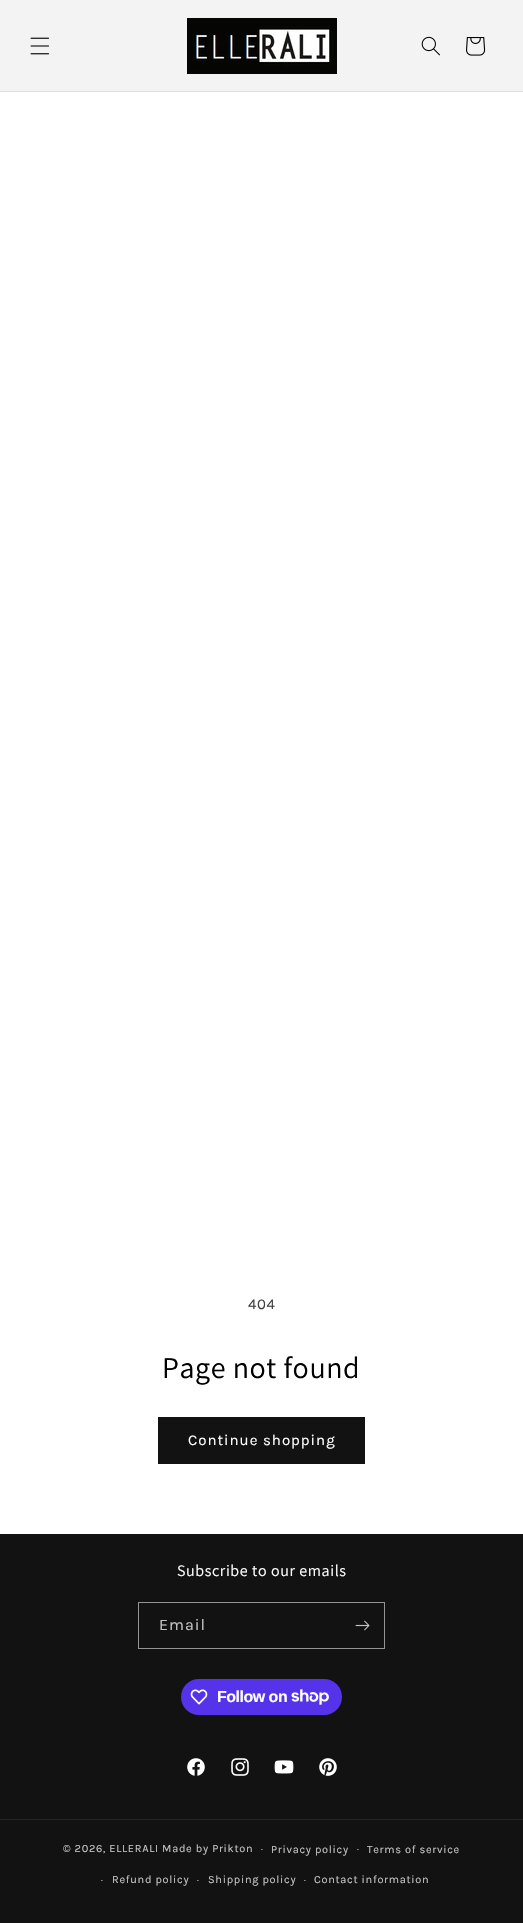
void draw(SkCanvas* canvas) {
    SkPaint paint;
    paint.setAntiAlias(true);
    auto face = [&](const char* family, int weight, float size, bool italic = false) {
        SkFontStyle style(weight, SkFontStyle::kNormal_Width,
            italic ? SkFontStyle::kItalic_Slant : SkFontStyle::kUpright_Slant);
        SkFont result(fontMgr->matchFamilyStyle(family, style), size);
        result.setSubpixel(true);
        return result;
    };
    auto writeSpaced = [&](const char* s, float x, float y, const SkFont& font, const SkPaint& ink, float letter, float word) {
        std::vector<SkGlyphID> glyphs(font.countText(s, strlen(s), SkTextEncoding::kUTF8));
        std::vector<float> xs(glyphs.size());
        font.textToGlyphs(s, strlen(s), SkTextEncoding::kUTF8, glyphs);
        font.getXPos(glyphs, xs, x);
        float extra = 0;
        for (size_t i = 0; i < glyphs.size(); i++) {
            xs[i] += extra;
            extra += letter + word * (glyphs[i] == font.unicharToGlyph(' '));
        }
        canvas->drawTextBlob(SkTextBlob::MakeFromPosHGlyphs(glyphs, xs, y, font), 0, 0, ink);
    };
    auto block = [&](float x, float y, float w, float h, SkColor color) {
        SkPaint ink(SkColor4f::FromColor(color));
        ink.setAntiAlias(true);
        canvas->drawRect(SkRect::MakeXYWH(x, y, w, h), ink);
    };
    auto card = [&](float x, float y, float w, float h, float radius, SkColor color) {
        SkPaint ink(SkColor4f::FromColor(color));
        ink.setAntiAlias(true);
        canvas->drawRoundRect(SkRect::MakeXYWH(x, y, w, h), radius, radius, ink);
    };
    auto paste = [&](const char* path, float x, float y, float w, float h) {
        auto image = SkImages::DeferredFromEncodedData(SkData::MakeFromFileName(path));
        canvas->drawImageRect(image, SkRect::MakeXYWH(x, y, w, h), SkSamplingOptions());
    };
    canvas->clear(SK_ColorWHITE);
    block(0, 0, 523, 91, SkColorSetRGB(243, 243, 243));
    block(0, 91, 523, 1, SkColorSetRGB(224, 224, 224));
    paste("pic1.png", 30, 37, 20, 18);
    paste("pic2.png", 187, 18, 150, 56);
    paste("pic3.png", 421, 36, 19, 20);
    paste("pic4.png", 466, 37, 20, 19);
    auto kFont1 = face("Karla", 400, 15);
    paint.setColor(SkColorSetRGB(64, 64, 64));
    writeSpaced("404", 248, 1309, kFont1, paint, 0.6f, 0);
    auto kFont2 = face("Assistant", 400, 30);
    paint.setColor(SK_ColorBLACK);
    writeSpaced("Page not found", 162, 1378, kFont2, paint, 0.6f, 0);
    block(158, 1417, 207, 47, SkColorSetRGB(18, 18, 18));
    paint.setColor(SK_ColorWHITE);
    writeSpaced("Continue shopping", 188, 1445, kFont1, paint, 1, 0);
    block(0, 1534, 523, 389, SkColorSetRGB(18, 18, 18));
    auto kFont3 = face("Assistant", 400, 16);
    writeSpaced("Subscribe to our emails", 177, 1576, kFont3, paint, 0.6f, 0);
    paint.setStyle(SkPaint::kStroke_Style);
    paint.setStrokeWidth(1);
    paint.setColor(SkColorSetRGB(148, 148, 148));
    canvas->drawRect(SkRect::MakeXYWH(138.5f, 1602.5f, 246, 46), paint);
    auto kFont4 = face("Karla", 400, 16);
    paint.setStyle(SkPaint::kFill_Style);
    paint.setColor(SkColorSetRGB(196, 196, 196));
    writeSpaced("Email", 159, 1630, kFont4, paint, 1, 0);
    paste("pic5.png", 355, 1620, 15, 11);
    card(181, 1679, 161, 36, 18, SkColorSetRGB(84, 51, 235));
    paste("pic6.png", 190, 1689, 18, 16);
    auto kFont5 = face("Liberation Sans", 700, 16);
    paint.setColor(SK_ColorWHITE);
    writeSpaced("Follow on", 217, 1702, kFont5, paint, -0.5f, 0);
    paste("pic7.png", 291, 1689, 38, 16);
    paste("pic8.png", 187, 1758, 18, 18);
    paste("pic9.png", 231, 1758, 18, 18);
    paste("pic10.png", 274, 1760, 20, 14);
    paste("pic11.png", 319, 1758, 18, 18);
    block(0, 1819, 523, 1, SkColorSetRGB(37, 37, 37));
    auto kFont6 = face("Karla", 400, 11);
    paint.setColor(SkColorSetRGB(196, 196, 196));
    writeSpaced("© 2026, ELLERALI Made by Prikton", 63, 1852, kFont6, paint, 0.7f, 0);
    auto kFont7 = face("Karla", 400, 10);
    writeSpaced("·", 261, 1852, kFont7, paint, 0.7f, 0);
    writeSpaced("Privacy policy", 271, 1853, kFont6, paint, 0.7f, 0);
    writeSpaced("·", 357, 1852, kFont7, paint, 0.7f, 0);
    writeSpaced("Terms of service", 367, 1853, kFont6, paint, 0.7f, 0);
    writeSpaced("·", 101, 1883, kFont7, paint, 0.7f, 0);
    writeSpaced("Refund policy", 112, 1883, kFont6, paint, 0.7f, 0);
    writeSpaced("·", 197, 1883, kFont7, paint, 0.7f, 0);
    writeSpaced("Shipping policy", 208, 1883, kFont6, paint, 0.7f, 0);
    writeSpaced("·", 304, 1883, kFont7, paint, 0.7f, 0);
    writeSpaced("Contact information", 314, 1883, kFont6, paint, 0.7f, 0);
}
